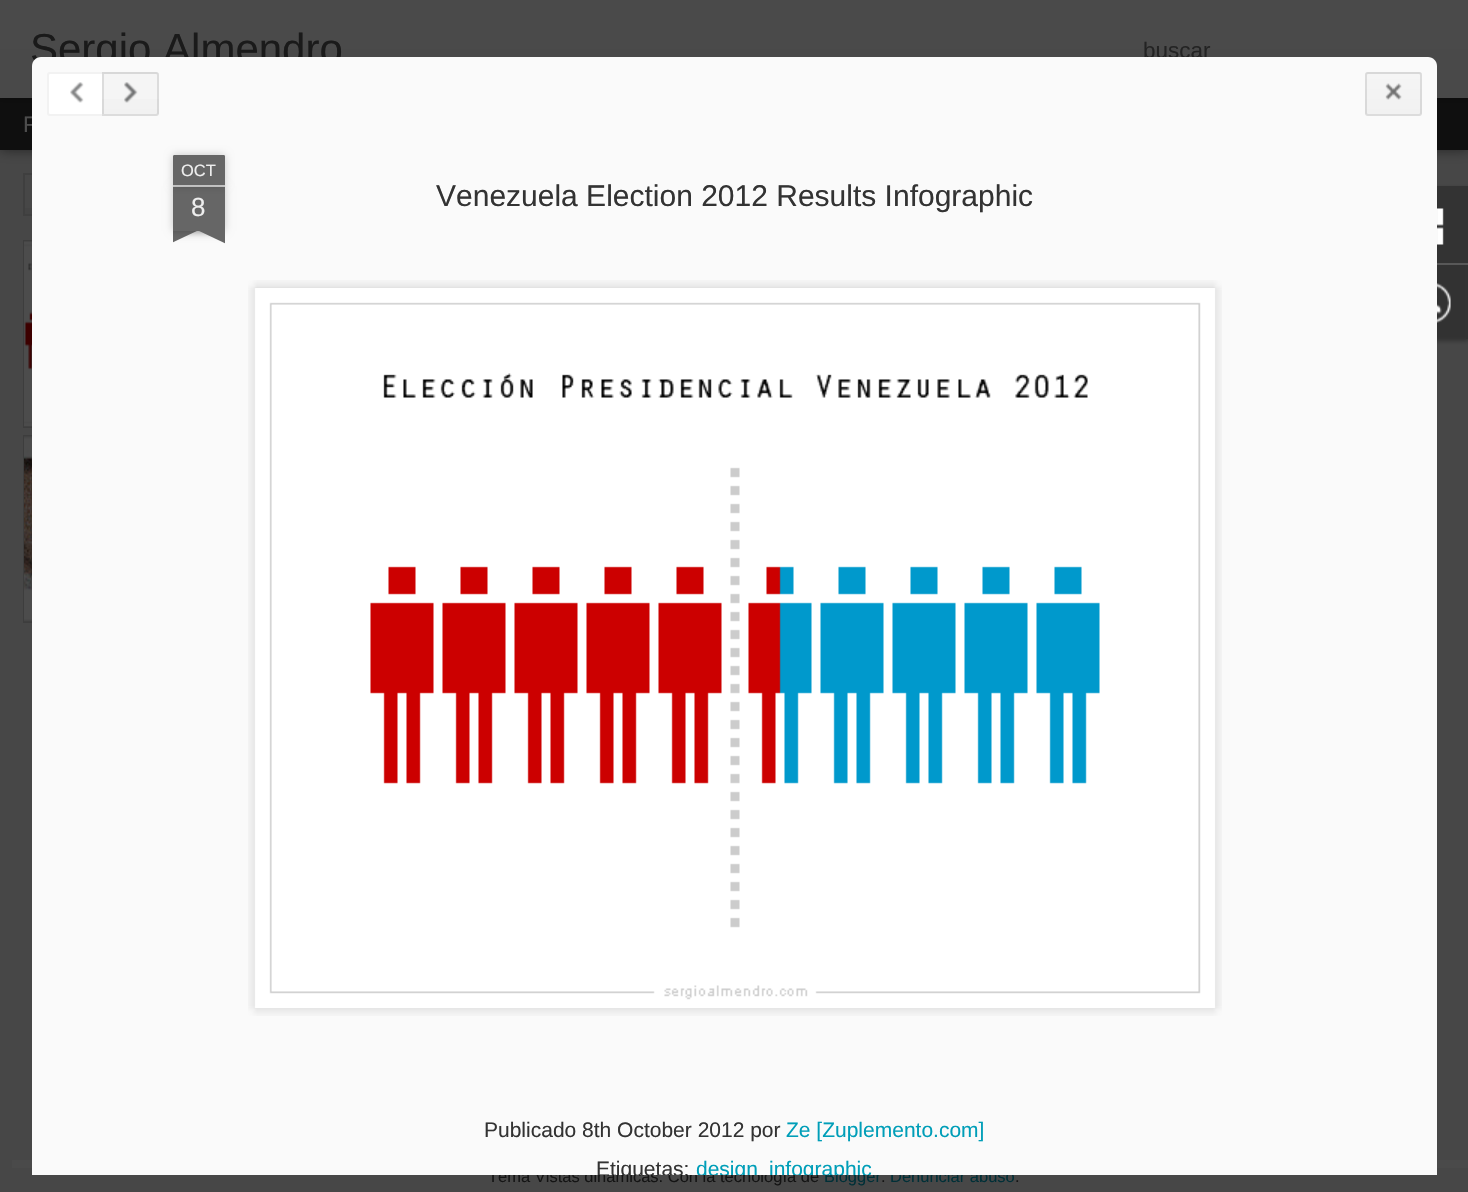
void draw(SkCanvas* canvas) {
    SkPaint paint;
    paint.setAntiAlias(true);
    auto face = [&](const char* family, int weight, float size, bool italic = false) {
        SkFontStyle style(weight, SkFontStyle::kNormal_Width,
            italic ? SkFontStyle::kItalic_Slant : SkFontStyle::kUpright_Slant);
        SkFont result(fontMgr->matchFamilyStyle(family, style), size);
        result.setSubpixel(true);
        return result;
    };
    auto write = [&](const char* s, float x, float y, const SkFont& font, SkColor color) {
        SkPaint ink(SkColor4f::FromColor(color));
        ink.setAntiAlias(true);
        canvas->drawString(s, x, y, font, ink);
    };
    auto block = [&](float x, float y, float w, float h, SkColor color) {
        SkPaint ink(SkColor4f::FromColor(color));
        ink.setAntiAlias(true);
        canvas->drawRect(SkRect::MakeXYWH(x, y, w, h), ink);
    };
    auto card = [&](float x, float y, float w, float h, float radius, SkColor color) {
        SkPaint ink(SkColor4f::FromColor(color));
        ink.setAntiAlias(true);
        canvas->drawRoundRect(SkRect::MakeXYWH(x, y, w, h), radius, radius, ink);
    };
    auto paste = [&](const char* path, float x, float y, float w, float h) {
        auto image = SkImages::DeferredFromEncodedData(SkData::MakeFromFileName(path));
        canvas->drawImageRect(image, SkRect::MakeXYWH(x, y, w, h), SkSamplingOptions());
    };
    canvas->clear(SkColorSetRGB(71, 71, 71));
    paint.setColor(SkColorSetARGB(128, 0, 0, 0));
    paint.setMaskFilter(SkMaskFilter::MakeBlur(kNormal_SkBlurStyle, 6));
    canvas->drawRect(SkRect::MakeXYWH(0, 98, 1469, 52), paint);
    paint.setMaskFilter(nullptr);
    block(0, 98, 1468, 52, SkColorSetRGB(15, 15, 15));
    paint.setColor(SkColorSetARGB(77, 0, 0, 0));
    paint.setMaskFilter(SkMaskFilter::MakeBlur(kNormal_SkBlurStyle, 4));
    canvas->drawRect(SkRect::MakeXYWH(0, 0, 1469, 98), paint);
    paint.setMaskFilter(nullptr);
    {
        const SkColor colors[] = {SkColorSetRGB(74, 74, 74), SkColorSetRGB(73, 73, 73)};
        const float stops[] = {0, 1};
        const SkPoint ends[] = {{0, 0}, {0, 98}};
        paint.setShader(SkGradientShader::MakeLinear(ends, colors, stops, 2, SkTileMode::kClamp));
        paint.setAlpha(255);
    }
    canvas->drawRect(SkRect::MakeXYWH(0, 0, 1468, 98), paint);
    auto kFont1 = face("Liberation Sans", 400, 42);
    write("Sergio Almendro", 30, 63, kFont1, SkColorSetRGB(26, 26, 26));
    auto kFont2 = face("Liberation Sans", 400, 22.5f);
    write("buscar", 1143, 58, kFont2, SkColorSetRGB(35, 35, 35));
    write("F", 23, 132, kFont2, SkColorSetRGB(77, 77, 77));
    {
        const SkColor colors[] = {SkColorSetRGB(71, 71, 71), SkColorSetRGB(68, 68, 68)};
        const float stops[] = {0, 1};
        const SkPoint ends[] = {{84, 174}, {84, 215}};
        paint.setShader(SkGradientShader::MakeLinear(ends, colors, stops, 2, SkTileMode::kClamp));
        paint.setAlpha(255);
    }
    canvas->drawRect(SkRect::MakeXYWH(25, 208, 7, 6), paint);
    paint.setStyle(SkPaint::kStroke_Style);
    paint.setStrokeWidth(2);
    paint.setShader(nullptr);
    paint.setColor(SkColorSetRGB(63, 63, 63));
    canvas->drawRect(SkRect::MakeXYWH(24, 174, 121, 41), paint);
    paint.setColor(SkColorSetRGB(61, 61, 61));
    canvas->drawRect(SkRect::MakeXYWH(24, 241, 185, 186), paint);
    paste("pic1.png", 24, 241, 8, 186);
    canvas->drawRect(SkRect::MakeXYWH(24, 436, 185, 186), paint);
    paste("pic2.png", 24, 436, 8, 186);
    paint.setStyle(SkPaint::kFill_Style);
    paint.setColor(SkColorSetARGB(77, 0, 0, 0));
    paint.setMaskFilter(SkMaskFilter::MakeBlur(kNormal_SkBlurStyle, 2));
    canvas->drawRoundRect(SkRect::MakeXYWH(1394, 188, 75, 153), 3, 3, paint);
    paint.setMaskFilter(nullptr);
    block(1437, 186, 31, 77, SkColorSetRGB(51, 51, 51));
    paste("pic9.png", 1437, 208, 7, 37);
    block(1437, 263, 31, 2, SkColorSetRGB(88, 88, 88));
    paste("pic10.png", 1437, 283, 14, 40);
    paste("pic3.png", 1437, 75, 1, 1081);
    {
        const SkColor colors[] = {SkColorSetRGB(74, 74, 74), SkColorSetRGB(72, 72, 72)};
        const float stops[] = {0, 1};
        const SkPoint ends[] = {{754, 1159}, {754, 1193}};
        paint.setShader(SkGradientShader::MakeLinear(ends, colors, stops, 2, SkTileMode::kClamp));
        paint.setAlpha(255);
    }
    canvas->drawRect(SkRect::MakeXYWH(12, 1160, 1456, 8), paint);
    auto kFont3 = face("Liberation Sans", 400, 16.5f);
    write("Tema Vistas dinámicas. Con la tecnología de", 488, 1182, kFont3, SkColorSetRGB(20, 20, 20));
    write("Blogger", 824, 1182, kFont3, SkColorSetRGB(0, 47, 55));
    write("Denunciar abuso", 890, 1182, kFont3, SkColorSetRGB(0, 47, 55));
    paint.setShader(nullptr);
    paint.setColor(SkColorSetRGB(250, 250, 250));
    canvas->drawPath(SkPathBuilder().moveTo(41, 57).lineTo(1428, 57).cubicTo(1433, 57, 1437, 61, 1437, 66).lineTo(1437, 1175).lineTo(32, 1175).lineTo(32, 66).cubicTo(32, 61, 36, 57, 41, 57).close().detach(), paint);
    paint.setColor(SK_ColorWHITE);
    canvas->drawPath(SkPathBuilder().moveTo(50, 73).lineTo(103, 73).lineTo(103, 115).lineTo(50, 115).cubicTo(49, 115, 48, 114, 48, 113).lineTo(48, 75).cubicTo(48, 74, 49, 73, 50, 73).close().detach(), paint);
    paint.setStyle(SkPaint::kStroke_Style);
    paint.setColor(SkColorSetRGB(242, 242, 242));
    canvas->drawPath(SkPathBuilder().moveTo(50, 73).lineTo(103, 73).lineTo(103, 115).lineTo(50, 115).cubicTo(49, 115, 48, 114, 48, 113).lineTo(48, 75).cubicTo(48, 74, 49, 73, 50, 73).close().detach(), paint);
    paste("pic4.png", 70, 82, 14, 21);
    paint.setStyle(SkPaint::kFill_Style);
    paint.setColor(SkColorSetRGB(245, 245, 245));
    canvas->drawPath(SkPathBuilder().moveTo(102, 72).lineTo(156, 72).cubicTo(157.5f, 72, 159, 73.5f, 159, 75).lineTo(159, 113).cubicTo(159, 114.5f, 157.5f, 116, 156, 116).lineTo(102, 116).close().detach(), paint);
    canvas->save();
    canvas->clipPath(SkPathBuilder().moveTo(102, 72).lineTo(156, 72).cubicTo(157.5f, 72, 159, 73.5f, 159, 75).lineTo(159, 113).cubicTo(159, 114.5f, 157.5f, 116, 156, 116).lineTo(102, 116).close().detach(), true);
    {
        const SkColor colors[] = {SkColorSetRGB(245, 245, 245), SkColorSetRGB(241, 241, 241)};
        const float stops[] = {0, 1};
        const SkPoint ends[] = {{131, 33}, {131, 74}};
        paint.setShader(SkGradientShader::MakeLinear(ends, colors, stops, 2, SkTileMode::kClamp));
        paint.setAlpha(255);
    }
    canvas->drawRect(SkRect::MakeXYWH(102, 72, 57, 2), paint);
    canvas->restore();
    {
        const SkColor colors[] = {SkColorSetRGB(245, 245, 245), SkColorSetRGB(241, 241, 241)};
        const float stops[] = {0, 1};
        const SkPoint ends[] = {{131, 74}, {131, 114}};
        paint.setShader(SkGradientShader::MakeLinear(ends, colors, stops, 2, SkTileMode::kClamp));
        paint.setAlpha(255);
    }
    canvas->drawRect(SkRect::MakeXYWH(102, 99, 57, 15), paint);
    paint.setStyle(SkPaint::kStroke_Style);
    paint.setShader(nullptr);
    paint.setColor(SkColorSetARGB(26, 0, 0, 0));
    canvas->drawPath(SkPathBuilder().moveTo(103, 73).lineTo(156, 73).cubicTo(157, 73, 158, 74, 158, 75).lineTo(158, 113).cubicTo(158, 114, 157, 115, 156, 115).lineTo(103, 115).close().detach(), paint);
    paste("pic5.png", 124, 82, 14, 21);
    card(1365, 72, 57, 44, 3, SkColorSetRGB(245, 245, 245));
    canvas->save();
    canvas->clipPath(SkPathBuilder().moveTo(1368, 72).lineTo(1419, 72).cubicTo(1420.5f, 72, 1422, 73.5f, 1422, 75).lineTo(1422, 113).cubicTo(1422, 114.5f, 1420.5f, 116, 1419, 116).lineTo(1368, 116).cubicTo(1366.5f, 116, 1365, 114.5f, 1365, 113).lineTo(1365, 75).cubicTo(1365, 73.5f, 1366.5f, 72, 1368, 72).close().detach(), true);
    paint.setStyle(SkPaint::kFill_Style);
    {
        const SkColor colors[] = {SkColorSetRGB(245, 245, 245), SkColorSetRGB(241, 241, 241)};
        const float stops[] = {0, 1};
        const SkPoint ends[] = {{1394, 33}, {1394, 74}};
        paint.setShader(SkGradientShader::MakeLinear(ends, colors, stops, 2, SkTileMode::kClamp));
        paint.setAlpha(255);
    }
    canvas->drawRect(SkRect::MakeXYWH(1365, 72, 57, 2), paint);
    {
        const SkColor colors[] = {SkColorSetRGB(245, 245, 245), SkColorSetRGB(241, 241, 241)};
        const float stops[] = {0, 1};
        const SkPoint ends[] = {{1394, 74}, {1394, 114}};
        paint.setShader(SkGradientShader::MakeLinear(ends, colors, stops, 2, SkTileMode::kClamp));
        paint.setAlpha(255);
    }
    canvas->drawRect(SkRect::MakeXYWH(1365, 74, 57, 40), paint);
    canvas->restore();
    paint.setStyle(SkPaint::kStroke_Style);
    paint.setShader(nullptr);
    paint.setColor(SkColorSetARGB(26, 0, 0, 0));
    canvas->drawRoundRect(SkRect::MakeXYWH(1366, 73, 55, 42), 2, 2, paint);
    paste("pic6.png", 1385, 83, 17, 17);
    paint.setStyle(SkPaint::kFill_Style);
    paint.setColor(SkColorSetARGB(51, 0, 0, 0));
    paint.setMaskFilter(SkMaskFilter::MakeBlur(kNormal_SkBlurStyle, 4));
    canvas->drawRect(SkRect::MakeXYWH(173, 186, 52, 45), paint);
    paint.setMaskFilter(nullptr);
    block(173, 186, 52, 45, SkColorSetRGB(102, 102, 102));
    paint.setMaskFilter(SkMaskFilter::MakeBlur(kNormal_SkBlurStyle, 4));
    canvas->drawRoundRect(SkRect::MakeXYWH(173, 155, 52, 31), 1.5f, 1.5f, paint);
    paint.setMaskFilter(nullptr);
    paint.setColor(SkColorSetRGB(102, 102, 102));
    canvas->drawPath(SkPathBuilder().moveTo(174.5f, 155).lineTo(223.5f, 155).cubicTo(224.5f, 155, 225, 155.5f, 225, 156.5f).lineTo(225, 186).lineTo(173, 186).lineTo(173, 156.5f).cubicTo(173, 155.5f, 173.5f, 155, 174.5f, 155).close().detach(), paint);
    block(173, 185, 52, 2, SkColorSetARGB(153, 255, 255, 255));
    write("OCT", 181, 176, kFont3, SkColorSetRGB(238, 238, 238));
    auto kFont4 = face("Liberation Sans", 400, 26);
    write("8", 191, 216, kFont4, SkColorSetRGB(238, 238, 238));
    canvas->save();
    canvas->clipRect(SkRect::MakeXYWH(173, 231, 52, 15));
    paint.setColor(SkColorSetARGB(51, 0, 0, 0));
    paint.setMaskFilter(SkMaskFilter::MakeBlur(kNormal_SkBlurStyle, 4));
    canvas->drawRect(SkRect::MakeXYWH(159, 216, 75, 15), paint);
    paint.setMaskFilter(nullptr);
    canvas->restore();
    canvas->save();
    canvas->clipRect(SkRect::MakeXYWH(173, 231, 52, 15));
    paint.setColor(SkColorSetRGB(102, 102, 102));
    canvas->drawPath(SkPathBuilder().moveTo(159, 233).lineTo(227, 201).lineTo(233, 214).lineTo(165, 246).close().detach(), paint);
    canvas->restore();
    canvas->save();
    canvas->clipRect(SkRect::MakeXYWH(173, 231, 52, 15));
    paint.setColor(SkColorSetARGB(51, 0, 0, 0));
    paint.setMaskFilter(SkMaskFilter::MakeBlur(kNormal_SkBlurStyle, 4));
    canvas->drawRect(SkRect::MakeXYWH(164, 216, 75, 15), paint);
    paint.setMaskFilter(nullptr);
    canvas->restore();
    canvas->save();
    canvas->clipRect(SkRect::MakeXYWH(173, 231, 52, 15));
    paint.setColor(SkColorSetRGB(102, 102, 102));
    canvas->drawPath(SkPathBuilder().moveTo(169, 201).lineTo(237, 233).lineTo(231, 246).lineTo(163, 214).close().detach(), paint);
    canvas->restore();
    auto kFont5 = face("Liberation Sans", 400, 30);
    write("Venezuela Election 2012 Results Infographic", 436, 206, kFont5, SkColorSetRGB(51, 51, 51));
    paste("pic7.png", 248, 280, 974, 736);
    paste("pic8.png", 255, 288, 960, 721);
    auto kFont6 = face("Liberation Sans", 400, 21);
    write("Publicado 8th October 2012 por", 484, 1137, kFont6, SkColorSetRGB(51, 51, 51));
    write("Ze [Zuplemento.com]", 786, 1137, kFont6, SkColorSetRGB(0, 158, 184));
    canvas->save();
    canvas->clipRect(SkRect::MakeXYWH(32, 132, 1405, 1043));
    write("Etiquetas:", 596, 1176, kFont6, SkColorSetRGB(51, 51, 51));
    write("design", 696, 1176, kFont6, SkColorSetRGB(0, 158, 184));
    write("infographic", 769, 1176, kFont6, SkColorSetRGB(0, 158, 184));
    canvas->restore();
    block(1466, 265, 2, 74, SkColorSetRGB(51, 51, 51));
    write(".", 881, 1182, kFont3, SkColorSetRGB(20, 20, 20));
    write(".", 1015, 1182, kFont3, SkColorSetRGB(20, 20, 20));
}
